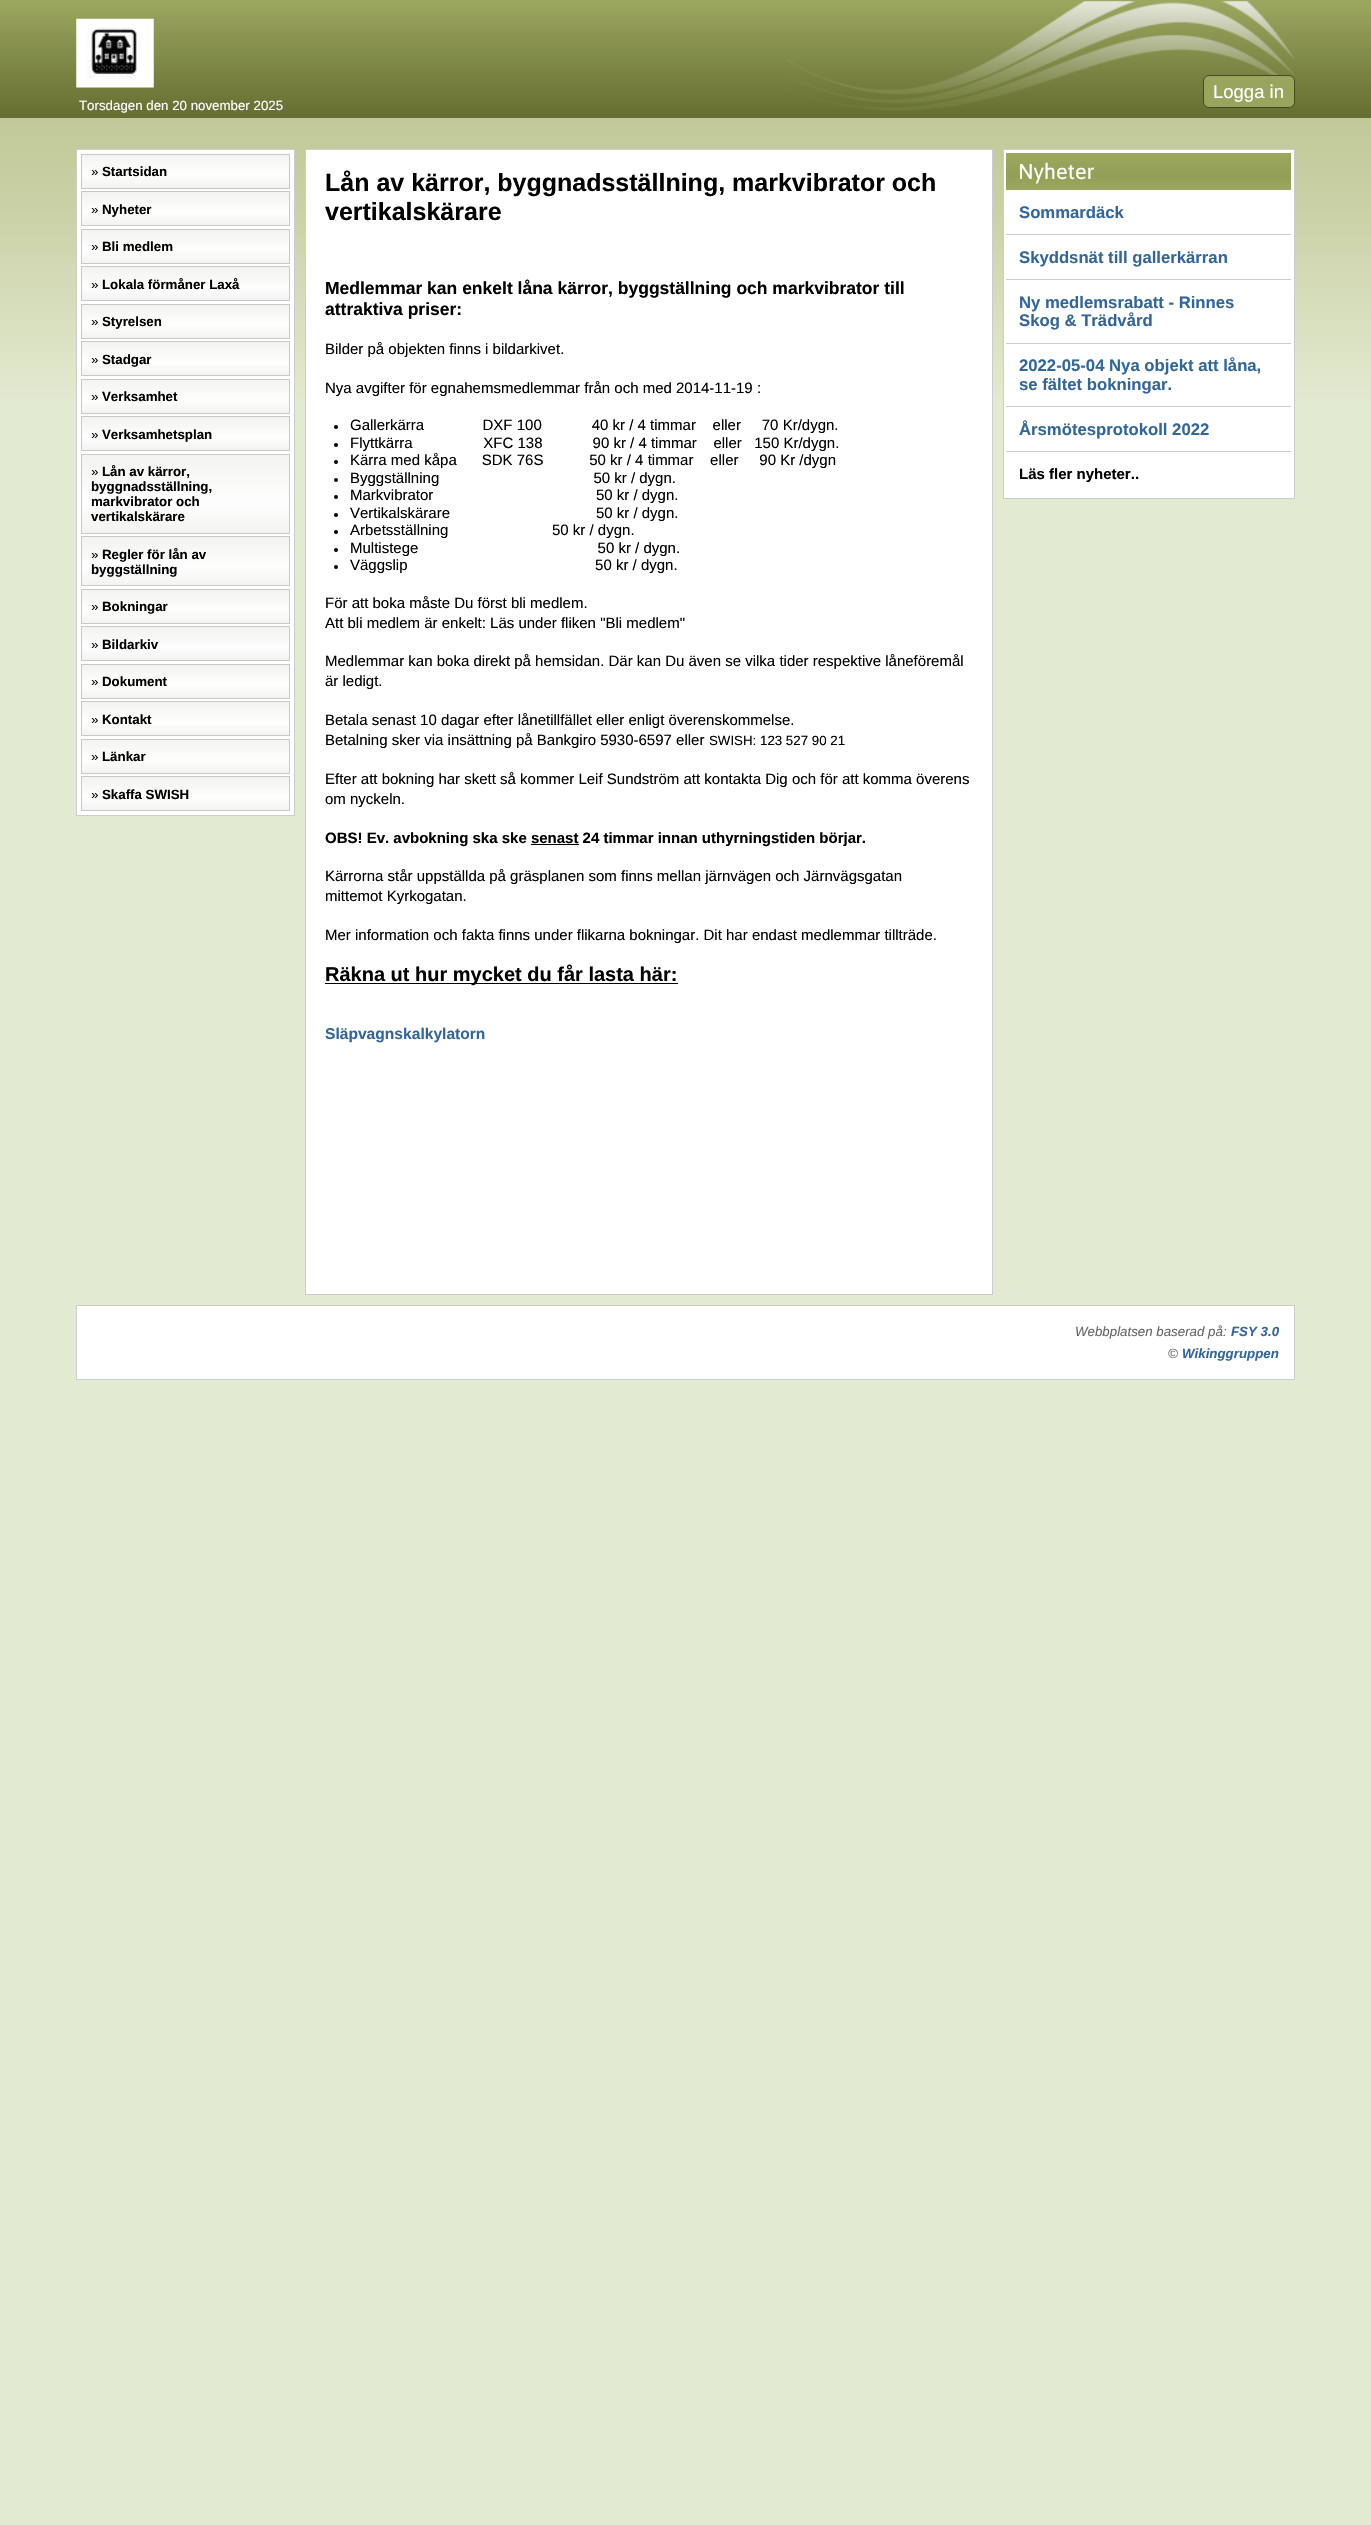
void draw(SkCanvas* canvas) {
    SkPaint paint;
    paint.setAntiAlias(true);
    auto face = [&](const char* family, int weight, float size, bool italic = false) {
        SkFontStyle style(weight, SkFontStyle::kNormal_Width,
            italic ? SkFontStyle::kItalic_Slant : SkFontStyle::kUpright_Slant);
        SkFont result(fontMgr->matchFamilyStyle(family, style), size);
        result.setSubpixel(true);
        return result;
    };
    auto write = [&](const char* s, float x, float y, const SkFont& font, SkColor color) {
        SkPaint ink(SkColor4f::FromColor(color));
        ink.setAntiAlias(true);
        canvas->drawString(s, x, y, font, ink);
    };
    auto block = [&](float x, float y, float w, float h, SkColor color) {
        SkPaint ink(SkColor4f::FromColor(color));
        ink.setAntiAlias(true);
        canvas->drawRect(SkRect::MakeXYWH(x, y, w, h), ink);
    };
    auto paste = [&](const char* path, float x, float y, float w, float h) {
        auto image = SkImages::DeferredFromEncodedData(SkData::MakeFromFileName(path));
        canvas->drawImageRect(image, SkRect::MakeXYWH(x, y, w, h), SkSamplingOptions());
    };
    canvas->clear(SkColorSetRGB(226, 235, 210));
    paste("pic1.png", 0, 118, 1371, 280);
    {
        const SkColor colors[] = {SkColorSetRGB(156, 167, 95), SkColorSetRGB(101, 109, 49)};
        const float stops[] = {0, 1};
        const SkPoint ends[] = {{686, 0}, {686, 118}};
        paint.setShader(SkGradientShader::MakeLinear(ends, colors, stops, 2, SkTileMode::kClamp));
        paint.setAlpha(255);
    }
    canvas->drawRect(SkRect::MakeXYWH(0, 0, 1371, 118), paint);
    paste("pic2.png", 786, 1, 509, 110);
    paste("pic3.png", 76, 18, 78, 70);
    paint.setShader(nullptr);
    paint.setColor(SkColorSetRGB(153, 164, 93));
    canvas->drawRoundRect(SkRect::MakeXYWH(1203.5f, 75.5f, 91, 32), 5.5f, 5.5f, paint);
    paint.setStyle(SkPaint::kStroke_Style);
    paint.setStrokeWidth(1);
    paint.setColor(SkColorSetRGB(68, 75, 30));
    canvas->drawRoundRect(SkRect::MakeXYWH(1203.5f, 75.5f, 91, 32), 5.5f, 5.5f, paint);
    auto kFont1 = face("Liberation Sans", 400, 18.5f);
    write("Logga in", 1213, 98, kFont1, SK_ColorWHITE);
    auto kFont2 = face("Liberation Sans", 400, 13.3f);
    write("Torsdagen den 20 november 2025", 79, 110, kFont2, SK_ColorWHITE);
    paint.setStyle(SkPaint::kFill_Style);
    paint.setColor(SK_ColorWHITE);
    canvas->drawRect(SkRect::MakeXYWH(76.5f, 149.5f, 218, 666), paint);
    paint.setStyle(SkPaint::kStroke_Style);
    paint.setColor(SkColorSetRGB(204, 204, 204));
    canvas->drawRect(SkRect::MakeXYWH(76.5f, 149.5f, 218, 666), paint);
    paint.setStyle(SkPaint::kFill_Style);
    {
        const SkColor colors[] = {SkColorSetRGB(243, 243, 241), SkColorSetRGB(254, 254, 254), SkColorSetRGB(243, 243, 241)};
        const float stops[] = {0, 0.6f, 1};
        const SkPoint ends[] = {{83, 155}, {83, 188}};
        paint.setShader(SkGradientShader::MakeLinear(ends, colors, stops, 3, SkTileMode::kClamp));
        paint.setAlpha(255);
    }
    canvas->drawRect(SkRect::MakeXYWH(82, 155, 207, 33), paint);
    paint.setStyle(SkPaint::kStroke_Style);
    paint.setShader(nullptr);
    paint.setColor(SkColorSetRGB(200, 200, 200));
    canvas->drawRect(SkRect::MakeXYWH(81.5f, 154.5f, 208, 34), paint);
    write("»", 91, 176, kFont2, SK_ColorBLACK);
    auto kFont3 = face("Liberation Sans", 700, 13.3f);
    write("Startsidan", 102, 176, kFont3, SK_ColorBLACK);
    paint.setStyle(SkPaint::kFill_Style);
    {
        const SkColor colors[] = {SkColorSetRGB(243, 243, 241), SkColorSetRGB(254, 254, 254), SkColorSetRGB(243, 243, 241)};
        const float stops[] = {0, 0.6f, 1};
        const SkPoint ends[] = {{83, 160}, {83, 193}};
        paint.setShader(SkGradientShader::MakeLinear(ends, colors, stops, 3, SkTileMode::kClamp));
        paint.setAlpha(255);
    }
    canvas->drawRect(SkRect::MakeXYWH(81, 192, 209, 1), paint);
    {
        const SkColor colors[] = {SkColorSetRGB(243, 243, 241), SkColorSetRGB(254, 254, 254), SkColorSetRGB(243, 243, 241)};
        const float stops[] = {0, 0.6f, 1};
        const SkPoint ends[] = {{83, 193}, {83, 225}};
        paint.setShader(SkGradientShader::MakeLinear(ends, colors, stops, 3, SkTileMode::kClamp));
        paint.setAlpha(255);
    }
    canvas->drawRect(SkRect::MakeXYWH(82, 193, 207, 32), paint);
    paint.setStyle(SkPaint::kStroke_Style);
    paint.setShader(nullptr);
    paint.setColor(SkColorSetRGB(200, 200, 200));
    canvas->drawRect(SkRect::MakeXYWH(81.5f, 191.5f, 208, 34), paint);
    write("»", 91, 214, kFont2, SK_ColorBLACK);
    write("Nyheter", 102, 214, kFont3, SK_ColorBLACK);
    paint.setStyle(SkPaint::kFill_Style);
    {
        const SkColor colors[] = {SkColorSetRGB(243, 243, 241), SkColorSetRGB(254, 254, 254), SkColorSetRGB(243, 243, 241)};
        const float stops[] = {0, 0.6f, 1};
        const SkPoint ends[] = {{83, 230}, {83, 263}};
        paint.setShader(SkGradientShader::MakeLinear(ends, colors, stops, 3, SkTileMode::kClamp));
        paint.setAlpha(255);
    }
    canvas->drawRect(SkRect::MakeXYWH(82, 230, 207, 33), paint);
    paint.setStyle(SkPaint::kStroke_Style);
    paint.setShader(nullptr);
    paint.setColor(SkColorSetRGB(200, 200, 200));
    canvas->drawRect(SkRect::MakeXYWH(81.5f, 229.5f, 208, 34), paint);
    write("»", 91, 251, kFont2, SK_ColorBLACK);
    write("Bli medlem", 102, 251, kFont3, SK_ColorBLACK);
    paint.setStyle(SkPaint::kFill_Style);
    {
        const SkColor colors[] = {SkColorSetRGB(243, 243, 241), SkColorSetRGB(254, 254, 254), SkColorSetRGB(243, 243, 241)};
        const float stops[] = {0, 0.6f, 1};
        const SkPoint ends[] = {{83, 235}, {83, 268}};
        paint.setShader(SkGradientShader::MakeLinear(ends, colors, stops, 3, SkTileMode::kClamp));
        paint.setAlpha(255);
    }
    canvas->drawRect(SkRect::MakeXYWH(81, 267, 209, 1), paint);
    {
        const SkColor colors[] = {SkColorSetRGB(243, 243, 241), SkColorSetRGB(254, 254, 254), SkColorSetRGB(243, 243, 241)};
        const float stops[] = {0, 0.6f, 1};
        const SkPoint ends[] = {{83, 268}, {83, 300}};
        paint.setShader(SkGradientShader::MakeLinear(ends, colors, stops, 3, SkTileMode::kClamp));
        paint.setAlpha(255);
    }
    canvas->drawRect(SkRect::MakeXYWH(82, 268, 207, 32), paint);
    paint.setStyle(SkPaint::kStroke_Style);
    paint.setShader(nullptr);
    paint.setColor(SkColorSetRGB(200, 200, 200));
    canvas->drawRect(SkRect::MakeXYWH(81.5f, 266.5f, 208, 34), paint);
    write("»", 91, 289, kFont2, SK_ColorBLACK);
    write("Lokala förmåner Laxå", 102, 289, kFont3, SK_ColorBLACK);
    paint.setStyle(SkPaint::kFill_Style);
    {
        const SkColor colors[] = {SkColorSetRGB(243, 243, 241), SkColorSetRGB(254, 254, 254), SkColorSetRGB(243, 243, 241)};
        const float stops[] = {0, 0.6f, 1};
        const SkPoint ends[] = {{83, 305}, {83, 338}};
        paint.setShader(SkGradientShader::MakeLinear(ends, colors, stops, 3, SkTileMode::kClamp));
        paint.setAlpha(255);
    }
    canvas->drawRect(SkRect::MakeXYWH(82, 305, 207, 33), paint);
    paint.setStyle(SkPaint::kStroke_Style);
    paint.setShader(nullptr);
    paint.setColor(SkColorSetRGB(200, 200, 200));
    canvas->drawRect(SkRect::MakeXYWH(81.5f, 304.5f, 208, 34), paint);
    write("»", 91, 326, kFont2, SK_ColorBLACK);
    write("Styrelsen", 102, 326, kFont3, SK_ColorBLACK);
    paint.setStyle(SkPaint::kFill_Style);
    {
        const SkColor colors[] = {SkColorSetRGB(243, 243, 241), SkColorSetRGB(254, 254, 254), SkColorSetRGB(243, 243, 241)};
        const float stops[] = {0, 0.6f, 1};
        const SkPoint ends[] = {{83, 310}, {83, 343}};
        paint.setShader(SkGradientShader::MakeLinear(ends, colors, stops, 3, SkTileMode::kClamp));
        paint.setAlpha(255);
    }
    canvas->drawRect(SkRect::MakeXYWH(81, 342, 209, 1), paint);
    {
        const SkColor colors[] = {SkColorSetRGB(243, 243, 241), SkColorSetRGB(254, 254, 254), SkColorSetRGB(243, 243, 241)};
        const float stops[] = {0, 0.6f, 1};
        const SkPoint ends[] = {{83, 343}, {83, 375}};
        paint.setShader(SkGradientShader::MakeLinear(ends, colors, stops, 3, SkTileMode::kClamp));
        paint.setAlpha(255);
    }
    canvas->drawRect(SkRect::MakeXYWH(82, 343, 207, 32), paint);
    paint.setStyle(SkPaint::kStroke_Style);
    paint.setShader(nullptr);
    paint.setColor(SkColorSetRGB(200, 200, 200));
    canvas->drawRect(SkRect::MakeXYWH(81.5f, 341.5f, 208, 34), paint);
    write("»", 91, 364, kFont2, SK_ColorBLACK);
    write("Stadgar", 102, 364, kFont3, SK_ColorBLACK);
    paint.setStyle(SkPaint::kFill_Style);
    {
        const SkColor colors[] = {SkColorSetRGB(243, 243, 241), SkColorSetRGB(254, 254, 254), SkColorSetRGB(243, 243, 241)};
        const float stops[] = {0, 0.6f, 1};
        const SkPoint ends[] = {{83, 380}, {83, 413}};
        paint.setShader(SkGradientShader::MakeLinear(ends, colors, stops, 3, SkTileMode::kClamp));
        paint.setAlpha(255);
    }
    canvas->drawRect(SkRect::MakeXYWH(82, 380, 207, 33), paint);
    paint.setStyle(SkPaint::kStroke_Style);
    paint.setShader(nullptr);
    paint.setColor(SkColorSetRGB(200, 200, 200));
    canvas->drawRect(SkRect::MakeXYWH(81.5f, 379.5f, 208, 34), paint);
    write("»", 91, 401, kFont2, SK_ColorBLACK);
    write("Verksamhet", 102, 401, kFont3, SK_ColorBLACK);
    paint.setStyle(SkPaint::kFill_Style);
    {
        const SkColor colors[] = {SkColorSetRGB(243, 243, 241), SkColorSetRGB(254, 254, 254), SkColorSetRGB(243, 243, 241)};
        const float stops[] = {0, 0.6f, 1};
        const SkPoint ends[] = {{83, 385}, {83, 418}};
        paint.setShader(SkGradientShader::MakeLinear(ends, colors, stops, 3, SkTileMode::kClamp));
        paint.setAlpha(255);
    }
    canvas->drawRect(SkRect::MakeXYWH(81, 417, 209, 1), paint);
    {
        const SkColor colors[] = {SkColorSetRGB(243, 243, 241), SkColorSetRGB(254, 254, 254), SkColorSetRGB(243, 243, 241)};
        const float stops[] = {0, 0.6f, 1};
        const SkPoint ends[] = {{83, 418}, {83, 450}};
        paint.setShader(SkGradientShader::MakeLinear(ends, colors, stops, 3, SkTileMode::kClamp));
        paint.setAlpha(255);
    }
    canvas->drawRect(SkRect::MakeXYWH(82, 418, 207, 32), paint);
    paint.setStyle(SkPaint::kStroke_Style);
    paint.setShader(nullptr);
    paint.setColor(SkColorSetRGB(200, 200, 200));
    canvas->drawRect(SkRect::MakeXYWH(81.5f, 416.5f, 208, 34), paint);
    write("»", 91, 439, kFont2, SK_ColorBLACK);
    write("Verksamhetsplan", 102, 439, kFont3, SK_ColorBLACK);
    paint.setStyle(SkPaint::kFill_Style);
    {
        const SkColor colors[] = {SkColorSetRGB(243, 243, 241), SkColorSetRGB(254, 254, 254), SkColorSetRGB(243, 243, 241)};
        const float stops[] = {0, 0.6f, 1};
        const SkPoint ends[] = {{83, 455}, {83, 533}};
        paint.setShader(SkGradientShader::MakeLinear(ends, colors, stops, 3, SkTileMode::kClamp));
        paint.setAlpha(255);
    }
    canvas->drawRect(SkRect::MakeXYWH(82, 455, 207, 78), paint);
    paint.setStyle(SkPaint::kStroke_Style);
    paint.setShader(nullptr);
    paint.setColor(SkColorSetRGB(200, 200, 200));
    canvas->drawRect(SkRect::MakeXYWH(81.5f, 454.5f, 208, 79), paint);
    write("»", 91, 476, kFont2, SK_ColorBLACK);
    write("Lån av kärror,", 102, 476, kFont3, SK_ColorBLACK);
    write("byggnadsställning,", 91, 491, kFont3, SK_ColorBLACK);
    write("markvibrator och", 91, 506, kFont3, SK_ColorBLACK);
    write("vertikalskärare", 91, 521, kFont3, SK_ColorBLACK);
    paint.setStyle(SkPaint::kFill_Style);
    {
        const SkColor colors[] = {SkColorSetRGB(243, 243, 241), SkColorSetRGB(254, 254, 254), SkColorSetRGB(243, 243, 241)};
        const float stops[] = {0, 0.6f, 1};
        const SkPoint ends[] = {{83, 490}, {83, 538}};
        paint.setShader(SkGradientShader::MakeLinear(ends, colors, stops, 3, SkTileMode::kClamp));
        paint.setAlpha(255);
    }
    canvas->drawRect(SkRect::MakeXYWH(81, 537, 209, 1), paint);
    {
        const SkColor colors[] = {SkColorSetRGB(243, 243, 241), SkColorSetRGB(254, 254, 254), SkColorSetRGB(243, 243, 241)};
        const float stops[] = {0, 0.6f, 1};
        const SkPoint ends[] = {{83, 538}, {83, 585}};
        paint.setShader(SkGradientShader::MakeLinear(ends, colors, stops, 3, SkTileMode::kClamp));
        paint.setAlpha(255);
    }
    canvas->drawRect(SkRect::MakeXYWH(82, 538, 207, 47), paint);
    paint.setStyle(SkPaint::kStroke_Style);
    paint.setShader(nullptr);
    paint.setColor(SkColorSetRGB(200, 200, 200));
    canvas->drawRect(SkRect::MakeXYWH(81.5f, 536.5f, 208, 49), paint);
    write("»", 91, 559, kFont2, SK_ColorBLACK);
    write("Regler för lån av", 102, 559, kFont3, SK_ColorBLACK);
    write("byggställning", 91, 574, kFont3, SK_ColorBLACK);
    paint.setStyle(SkPaint::kFill_Style);
    {
        const SkColor colors[] = {SkColorSetRGB(243, 243, 241), SkColorSetRGB(254, 254, 254), SkColorSetRGB(243, 243, 241)};
        const float stops[] = {0, 0.6f, 1};
        const SkPoint ends[] = {{83, 590}, {83, 623}};
        paint.setShader(SkGradientShader::MakeLinear(ends, colors, stops, 3, SkTileMode::kClamp));
        paint.setAlpha(255);
    }
    canvas->drawRect(SkRect::MakeXYWH(82, 590, 207, 33), paint);
    paint.setStyle(SkPaint::kStroke_Style);
    paint.setShader(nullptr);
    paint.setColor(SkColorSetRGB(200, 200, 200));
    canvas->drawRect(SkRect::MakeXYWH(81.5f, 589.5f, 208, 34), paint);
    write("»", 91, 611, kFont2, SK_ColorBLACK);
    write("Bokningar", 102, 611, kFont3, SK_ColorBLACK);
    paint.setStyle(SkPaint::kFill_Style);
    {
        const SkColor colors[] = {SkColorSetRGB(243, 243, 241), SkColorSetRGB(254, 254, 254), SkColorSetRGB(243, 243, 241)};
        const float stops[] = {0, 0.6f, 1};
        const SkPoint ends[] = {{83, 595}, {83, 628}};
        paint.setShader(SkGradientShader::MakeLinear(ends, colors, stops, 3, SkTileMode::kClamp));
        paint.setAlpha(255);
    }
    canvas->drawRect(SkRect::MakeXYWH(81, 627, 209, 1), paint);
    {
        const SkColor colors[] = {SkColorSetRGB(243, 243, 241), SkColorSetRGB(254, 254, 254), SkColorSetRGB(243, 243, 241)};
        const float stops[] = {0, 0.6f, 1};
        const SkPoint ends[] = {{83, 628}, {83, 660}};
        paint.setShader(SkGradientShader::MakeLinear(ends, colors, stops, 3, SkTileMode::kClamp));
        paint.setAlpha(255);
    }
    canvas->drawRect(SkRect::MakeXYWH(82, 628, 207, 32), paint);
    paint.setStyle(SkPaint::kStroke_Style);
    paint.setShader(nullptr);
    paint.setColor(SkColorSetRGB(200, 200, 200));
    canvas->drawRect(SkRect::MakeXYWH(81.5f, 626.5f, 208, 34), paint);
    write("»", 91, 649, kFont2, SK_ColorBLACK);
    write("Bildarkiv", 102, 649, kFont3, SK_ColorBLACK);
    paint.setStyle(SkPaint::kFill_Style);
    {
        const SkColor colors[] = {SkColorSetRGB(243, 243, 241), SkColorSetRGB(254, 254, 254), SkColorSetRGB(243, 243, 241)};
        const float stops[] = {0, 0.6f, 1};
        const SkPoint ends[] = {{83, 665}, {83, 698}};
        paint.setShader(SkGradientShader::MakeLinear(ends, colors, stops, 3, SkTileMode::kClamp));
        paint.setAlpha(255);
    }
    canvas->drawRect(SkRect::MakeXYWH(82, 665, 207, 33), paint);
    paint.setStyle(SkPaint::kStroke_Style);
    paint.setShader(nullptr);
    paint.setColor(SkColorSetRGB(200, 200, 200));
    canvas->drawRect(SkRect::MakeXYWH(81.5f, 664.5f, 208, 34), paint);
    write("»", 91, 686, kFont2, SK_ColorBLACK);
    write("Dokument", 102, 686, kFont3, SK_ColorBLACK);
    paint.setStyle(SkPaint::kFill_Style);
    {
        const SkColor colors[] = {SkColorSetRGB(243, 243, 241), SkColorSetRGB(254, 254, 254), SkColorSetRGB(243, 243, 241)};
        const float stops[] = {0, 0.6f, 1};
        const SkPoint ends[] = {{83, 670}, {83, 703}};
        paint.setShader(SkGradientShader::MakeLinear(ends, colors, stops, 3, SkTileMode::kClamp));
        paint.setAlpha(255);
    }
    canvas->drawRect(SkRect::MakeXYWH(81, 702, 209, 1), paint);
    {
        const SkColor colors[] = {SkColorSetRGB(243, 243, 241), SkColorSetRGB(254, 254, 254), SkColorSetRGB(243, 243, 241)};
        const float stops[] = {0, 0.6f, 1};
        const SkPoint ends[] = {{83, 703}, {83, 735}};
        paint.setShader(SkGradientShader::MakeLinear(ends, colors, stops, 3, SkTileMode::kClamp));
        paint.setAlpha(255);
    }
    canvas->drawRect(SkRect::MakeXYWH(82, 703, 207, 32), paint);
    paint.setStyle(SkPaint::kStroke_Style);
    paint.setShader(nullptr);
    paint.setColor(SkColorSetRGB(200, 200, 200));
    canvas->drawRect(SkRect::MakeXYWH(81.5f, 701.5f, 208, 34), paint);
    write("»", 91, 724, kFont2, SK_ColorBLACK);
    write("Kontakt", 102, 724, kFont3, SK_ColorBLACK);
    paint.setStyle(SkPaint::kFill_Style);
    {
        const SkColor colors[] = {SkColorSetRGB(243, 243, 241), SkColorSetRGB(254, 254, 254), SkColorSetRGB(243, 243, 241)};
        const float stops[] = {0, 0.6f, 1};
        const SkPoint ends[] = {{83, 740}, {83, 773}};
        paint.setShader(SkGradientShader::MakeLinear(ends, colors, stops, 3, SkTileMode::kClamp));
        paint.setAlpha(255);
    }
    canvas->drawRect(SkRect::MakeXYWH(82, 740, 207, 33), paint);
    paint.setStyle(SkPaint::kStroke_Style);
    paint.setShader(nullptr);
    paint.setColor(SkColorSetRGB(200, 200, 200));
    canvas->drawRect(SkRect::MakeXYWH(81.5f, 739.5f, 208, 34), paint);
    write("»", 91, 761, kFont2, SK_ColorBLACK);
    write("Länkar", 102, 761, kFont3, SK_ColorBLACK);
    paint.setStyle(SkPaint::kFill_Style);
    {
        const SkColor colors[] = {SkColorSetRGB(243, 243, 241), SkColorSetRGB(254, 254, 254), SkColorSetRGB(243, 243, 241)};
        const float stops[] = {0, 0.6f, 1};
        const SkPoint ends[] = {{83, 745}, {83, 778}};
        paint.setShader(SkGradientShader::MakeLinear(ends, colors, stops, 3, SkTileMode::kClamp));
        paint.setAlpha(255);
    }
    canvas->drawRect(SkRect::MakeXYWH(81, 777, 209, 1), paint);
    {
        const SkColor colors[] = {SkColorSetRGB(243, 243, 241), SkColorSetRGB(254, 254, 254), SkColorSetRGB(243, 243, 241)};
        const float stops[] = {0, 0.6f, 1};
        const SkPoint ends[] = {{83, 778}, {83, 810}};
        paint.setShader(SkGradientShader::MakeLinear(ends, colors, stops, 3, SkTileMode::kClamp));
        paint.setAlpha(255);
    }
    canvas->drawRect(SkRect::MakeXYWH(82, 778, 207, 32), paint);
    paint.setStyle(SkPaint::kStroke_Style);
    paint.setShader(nullptr);
    paint.setColor(SkColorSetRGB(200, 200, 200));
    canvas->drawRect(SkRect::MakeXYWH(81.5f, 776.5f, 208, 34), paint);
    write("»", 91, 799, kFont2, SK_ColorBLACK);
    write("Skaffa SWISH", 102, 799, kFont3, SK_ColorBLACK);
    paint.setStyle(SkPaint::kFill_Style);
    paint.setColor(SK_ColorWHITE);
    canvas->drawRect(SkRect::MakeXYWH(305.5f, 149.5f, 687, 1145), paint);
    paint.setStyle(SkPaint::kStroke_Style);
    paint.setColor(SkColorSetRGB(204, 204, 204));
    canvas->drawRect(SkRect::MakeXYWH(305.5f, 149.5f, 687, 1145), paint);
    auto kFont4 = face("Liberation Sans", 700, 25);
    write("Lån av kärror, byggnadsställning, markvibrator och", 325, 191, kFont4, SK_ColorBLACK);
    write("vertikalskärare", 325, 220, kFont4, SK_ColorBLACK);
    auto kFont5 = face("Liberation Sans", 700, 17.5f);
    write("Medlemmar kan enkelt låna kärror, byggställning och markvibrator till", 325, 294, kFont5, SK_ColorBLACK);
    write("attraktiva priser:", 325, 315, kFont5, SK_ColorBLACK);
    auto kFont6 = face("Liberation Sans", 400, 15);
    write("Bilder på objekten finns i bildarkivet.", 325, 354, kFont6, SK_ColorBLACK);
    write("Nya avgifter för egnahemsmedlemmar från och med 2014-11-19 :", 325, 393, kFont6, SK_ColorBLACK);
    paint.setStyle(SkPaint::kFill_Style);
    paint.setColor(SK_ColorBLACK);
    canvas->drawCircle(336, 427, 2, paint);
    write("Gallerkärra              DXF 100            40 kr / 4 timmar    eller     70 Kr/dygn.", 350, 430, kFont6, SK_ColorBLACK);
    canvas->drawCircle(336, 445, 2, paint);
    write("Flyttkärra                 XFC 138            90 kr / 4 timmar    eller   150 Kr/dygn.", 350, 448, kFont6, SK_ColorBLACK);
    canvas->drawCircle(336, 462, 2, paint);
    write("Kärra med kåpa      SDK 76S           50 kr / 4 timmar    eller     90 Kr /dygn", 350, 465, kFont6, SK_ColorBLACK);
    canvas->drawCircle(336, 480, 2, paint);
    write("Byggställning                                     50 kr / dygn.", 350, 483, kFont6, SK_ColorBLACK);
    canvas->drawCircle(336, 497, 2, paint);
    write("Markvibrator                                       50 kr / dygn.", 350, 500, kFont6, SK_ColorBLACK);
    canvas->drawCircle(336, 515, 2, paint);
    write("Vertikalskärare                                   50 kr / dygn.", 350, 518, kFont6, SK_ColorBLACK);
    canvas->drawCircle(336, 532, 2, paint);
    write("Arbetsställning", 350, 535, kFont6, SK_ColorBLACK);
    write("50 kr / dygn.", 552, 535, kFont6, SK_ColorBLACK);
    canvas->drawCircle(336, 550, 2, paint);
    write("Multistege                                           50 kr / dygn.", 350, 553, kFont6, SK_ColorBLACK);
    canvas->drawCircle(336, 567, 2, paint);
    write("Väggslip                                             50 kr / dygn.", 350, 570, kFont6, SK_ColorBLACK);
    write("För att boka måste Du först bli medlem.", 325, 608, kFont6, SK_ColorBLACK);
    write("Att bli medlem är enkelt: Läs under fliken \"Bli medlem\"", 325, 628, kFont6, SK_ColorBLACK);
    write("Medlemmar kan boka direkt på hemsidan. Där kan Du även se vilka tider respektive låneföremål", 325, 666, kFont6, SK_ColorBLACK);
    write("är ledigt.", 325, 686, kFont6, SK_ColorBLACK);
    write("Betala senast 10 dagar efter lånetillfället eller enligt överenskommelse.", 325, 725, kFont6, SK_ColorBLACK);
    write("Betalning sker via insättning på Bankgiro 5930-6597 eller", 325, 745, kFont6, SK_ColorBLACK);
    write("SWISH: 123 527 90 21", 709, 745, kFont2, SK_ColorBLACK);
    write("Efter att bokning har skett så kommer Leif Sundström att kontakta Dig och för att komma överens", 325, 784, kFont6, SK_ColorBLACK);
    write("om nyckeln.", 325, 804, kFont6, SK_ColorBLACK);
    auto kFont7 = face("Liberation Sans", 700, 15);
    write("OBS! Ev. avbokning ska ske senast 24 timmar innan uthyrningstiden börjar.", 325, 843, kFont7, SK_ColorBLACK);
    block(531, 844, 48, 1, SK_ColorBLACK);
    write("Kärrorna står uppställda på gräsplanen som finns mellan järnvägen och Järnvägsgatan", 325, 881, kFont6, SK_ColorBLACK);
    write("mittemot Kyrkogatan.", 325, 901, kFont6, SK_ColorBLACK);
    write("Mer information och fakta finns under flikarna bokningar. Dit har endast medlemmar tillträde.", 325, 940, kFont6, SK_ColorBLACK);
    block(325, 983, 353, 1, SK_ColorBLACK);
    auto kFont8 = face("Liberation Sans", 700, 20);
    write("Räkna ut hur mycket du får lasta här:", 325, 981, kFont8, SK_ColorBLACK);
    auto kFont9 = face("Liberation Sans", 700, 15.6f);
    write("Släpvagnskalkylatorn", 325, 1039, kFont9, SkColorSetRGB(51, 102, 153));
    paint.setColor(SK_ColorWHITE);
    canvas->drawRect(SkRect::MakeXYWH(1003.5f, 149.5f, 291, 349), paint);
    paint.setStyle(SkPaint::kStroke_Style);
    paint.setColor(SkColorSetRGB(204, 204, 204));
    canvas->drawRect(SkRect::MakeXYWH(1003.5f, 149.5f, 291, 349), paint);
    paint.setStyle(SkPaint::kFill_Style);
    {
        const SkColor colors[] = {SkColorSetRGB(156, 167, 95), SkColorSetRGB(147, 158, 86), SkColorSetRGB(156, 167, 95)};
        const float stops[] = {0, 0.6f, 1};
        const SkPoint ends[] = {{1006, 153}, {1006, 190}};
        paint.setShader(SkGradientShader::MakeLinear(ends, colors, stops, 3, SkTileMode::kClamp));
        paint.setAlpha(255);
    }
    canvas->drawRect(SkRect::MakeXYWH(1006, 153, 285, 37), paint);
    auto kFont10 = face("Asap", 400, 21.5f);
    write("Nyheter", 1018, 179, kFont10, SK_ColorWHITE);
    auto kFont11 = face("Liberation Sans", 700, 16.7f);
    write("Sommardäck", 1019, 218, kFont11, SkColorSetRGB(51, 102, 153));
    block(1006, 234, 285, 1, SkColorSetRGB(204, 204, 204));
    write("Skyddsnät till gallerkärran", 1019, 263, kFont11, SkColorSetRGB(51, 102, 153));
    block(1006, 279, 285, 1, SkColorSetRGB(204, 204, 204));
    write("Ny medlemsrabatt - Rinnes", 1019, 308, kFont11, SkColorSetRGB(51, 102, 153));
    write("Skog & Trädvård", 1019, 326, kFont11, SkColorSetRGB(51, 102, 153));
    block(1006, 343, 285, 1, SkColorSetRGB(204, 204, 204));
    write("2022-05-04 Nya objekt att låna,", 1019, 371, kFont11, SkColorSetRGB(51, 102, 153));
    write("se fältet bokningar.", 1019, 390, kFont11, SkColorSetRGB(51, 102, 153));
    block(1006, 406, 285, 1, SkColorSetRGB(204, 204, 204));
    write("Årsmötesprotokoll 2022", 1019, 435, kFont11, SkColorSetRGB(51, 102, 153));
    block(1006, 451, 285, 1, SkColorSetRGB(204, 204, 204));
    write("Läs fler nyheter..", 1019, 479, kFont7, SK_ColorBLACK);
    paint.setShader(nullptr);
    paint.setColor(SK_ColorWHITE);
    canvas->drawRect(SkRect::MakeXYWH(76.5f, 1305.5f, 1218, 74), paint);
    paint.setStyle(SkPaint::kStroke_Style);
    paint.setColor(SkColorSetRGB(204, 204, 204));
    canvas->drawRect(SkRect::MakeXYWH(76.5f, 1305.5f, 1218, 74), paint);
    auto kFont12 = face("Liberation Sans", 400, 13.3f, true);
    write("Webbplatsen baserad på:", 1075, 1336, kFont12, SkColorSetRGB(102, 102, 102));
    auto kFont13 = face("Liberation Sans", 700, 13.3f, true);
    write("FSY 3.0", 1231, 1336, kFont13, SkColorSetRGB(51, 102, 153));
    write("©", 1168, 1358, kFont12, SkColorSetRGB(102, 102, 102));
    write("Wikinggruppen", 1182, 1358, kFont13, SkColorSetRGB(51, 102, 153));
}
